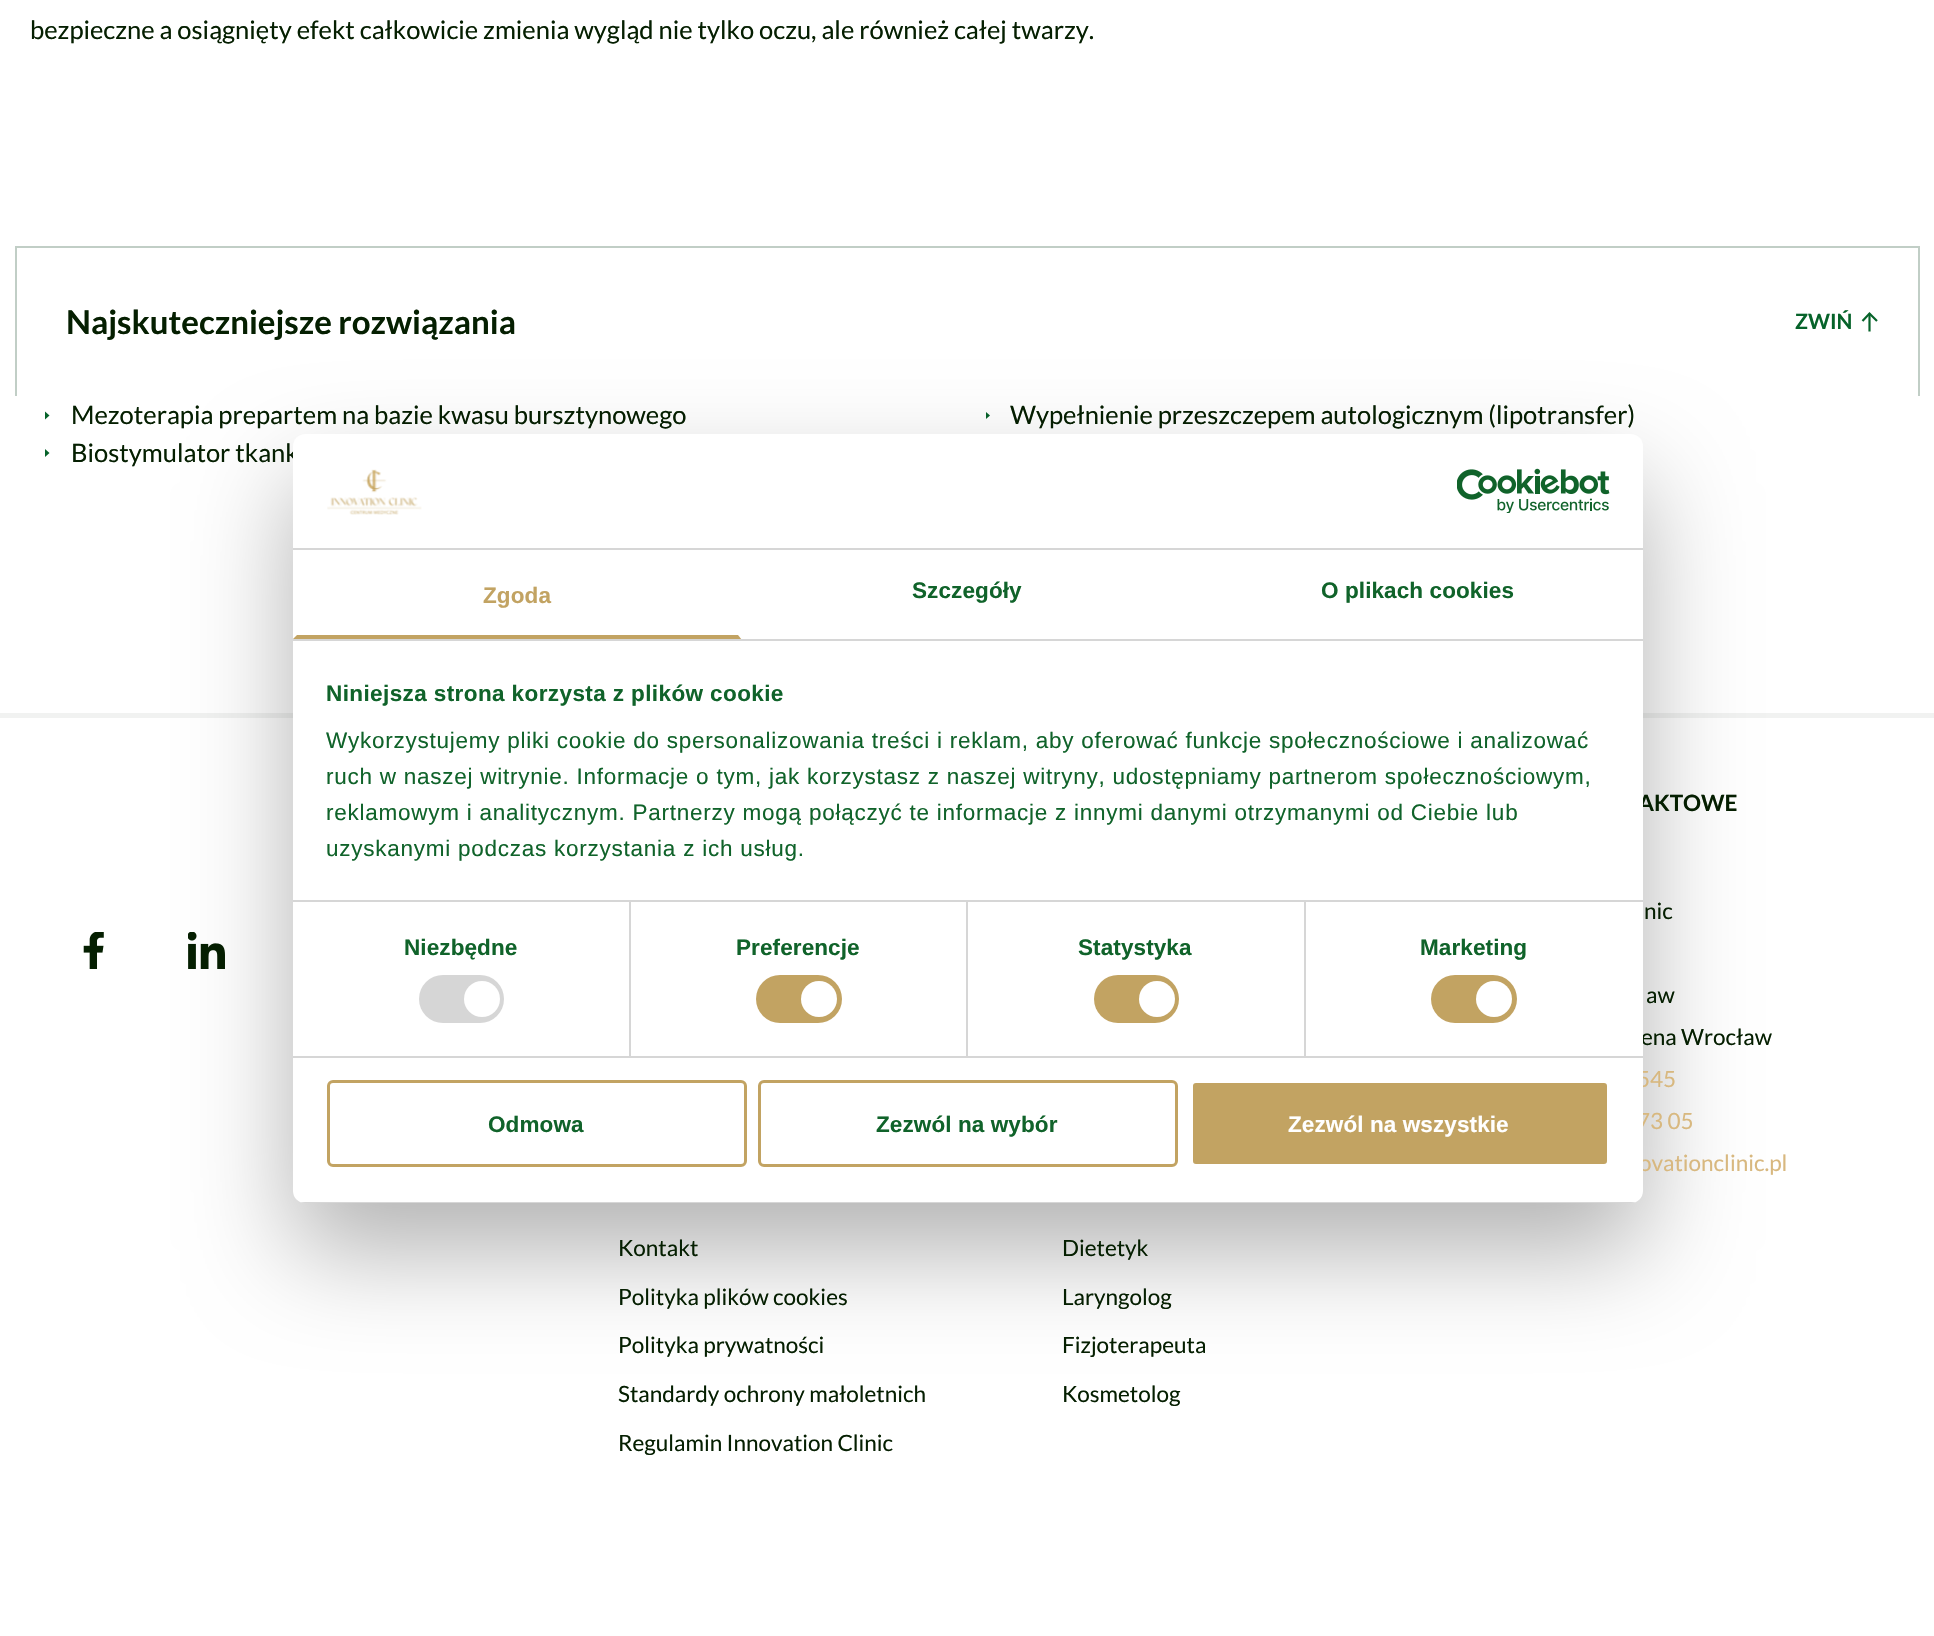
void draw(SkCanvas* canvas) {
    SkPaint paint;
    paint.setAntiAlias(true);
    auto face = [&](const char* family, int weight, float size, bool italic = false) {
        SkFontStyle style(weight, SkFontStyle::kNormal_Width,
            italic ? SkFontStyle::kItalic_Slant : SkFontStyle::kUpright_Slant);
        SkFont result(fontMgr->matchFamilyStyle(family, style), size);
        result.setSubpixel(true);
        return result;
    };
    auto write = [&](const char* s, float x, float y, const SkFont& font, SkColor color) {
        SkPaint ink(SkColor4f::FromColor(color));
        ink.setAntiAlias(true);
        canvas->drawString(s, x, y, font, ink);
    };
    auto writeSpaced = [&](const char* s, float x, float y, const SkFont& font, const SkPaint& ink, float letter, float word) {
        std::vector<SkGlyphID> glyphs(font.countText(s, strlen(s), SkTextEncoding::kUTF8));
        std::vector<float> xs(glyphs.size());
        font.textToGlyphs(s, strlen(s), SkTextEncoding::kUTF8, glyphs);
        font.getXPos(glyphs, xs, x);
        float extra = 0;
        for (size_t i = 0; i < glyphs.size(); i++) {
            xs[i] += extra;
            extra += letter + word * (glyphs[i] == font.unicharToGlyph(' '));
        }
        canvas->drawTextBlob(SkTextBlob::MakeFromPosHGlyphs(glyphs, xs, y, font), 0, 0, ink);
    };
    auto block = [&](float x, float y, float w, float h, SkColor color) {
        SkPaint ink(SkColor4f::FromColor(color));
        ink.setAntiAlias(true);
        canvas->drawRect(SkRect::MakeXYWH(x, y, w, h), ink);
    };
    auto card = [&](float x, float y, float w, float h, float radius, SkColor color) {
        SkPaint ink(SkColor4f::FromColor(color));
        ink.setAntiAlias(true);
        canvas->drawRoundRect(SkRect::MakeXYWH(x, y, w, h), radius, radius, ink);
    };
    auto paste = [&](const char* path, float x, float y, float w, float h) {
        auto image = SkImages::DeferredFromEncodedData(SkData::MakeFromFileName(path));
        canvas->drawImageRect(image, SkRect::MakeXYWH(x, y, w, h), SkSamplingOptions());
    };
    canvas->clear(SK_ColorWHITE);
    auto kFont1 = face("Lato", 400, 25.5f);
    write("bezpieczne a osiągnięty efekt całkowicie zmienia wygląd nie tylko oczu, ale również całej twarzy.", 30, 39, kFont1, SkColorSetRGB(5, 31, 1));
    paint.setStyle(SkPaint::kStroke_Style);
    paint.setStrokeWidth(2);
    paint.setColor(SkColorSetRGB(193, 206, 198));
    canvas->drawRect(SkRect::MakeXYWH(16, 247, 1903, 150), paint);
    auto kFont2 = face("Lato", 700, 33);
    write("Najskuteczniejsze rozwiązania", 66, 334, kFont2, SkColorSetRGB(5, 31, 1));
    auto kFont3 = face("Lato", 700, 21);
    write("ZWIŃ", 1795, 329, kFont3, SkColorSetRGB(6, 99, 42));
    paint.setStrokeWidth(2.2f);
    paint.setStrokeJoin(SkPaint::kRound_Join);
    paint.setColor(SkColorSetRGB(6, 99, 42));
    canvas->drawPath(SkPathBuilder().moveTo(1869.5f, 331.5f).lineTo(1869.5f, 313.5f).detach(), paint);
    paint.setStrokeJoin(SkPaint::kMiter_Join);
    canvas->drawPath(SkPathBuilder().moveTo(1877, 321).lineTo(1869.5f, 313.5f).lineTo(1862.5f, 321).detach(), paint);
    block(15, 396, 1905, 2, SK_ColorWHITE);
    paint.setStyle(SkPaint::kFill_Style);
    canvas->drawPath(SkPathBuilder().moveTo(45, 411.5f).lineTo(49.5f, 415.5f).lineTo(45, 419.5f).close().detach(), paint);
    write("Mezoterapia prepartem na bazie kwasu bursztynowego", 71, 424, kFont1, SkColorSetRGB(5, 31, 1));
    canvas->save();
    canvas->clipRect(SkRect::MakeXYWH(986, 411, 5, 9));
    canvas->drawPath(SkPathBuilder().moveTo(985.5f, 411.5f).lineTo(990, 415.5f).lineTo(985.5f, 419.5f).close().detach(), paint);
    canvas->restore();
    write("Wypełnienie przeszczepem autologicznym (lipotransfer)", 1010, 424, kFont1, SkColorSetRGB(5, 31, 1));
    canvas->drawPath(SkPathBuilder().moveTo(45, 449).lineTo(49.5f, 453).lineTo(45, 457).close().detach(), paint);
    write("Biostymulator tkank", 71, 462, kFont1, SkColorSetRGB(5, 31, 1));
    block(0, 713, 1934, 5, SkColorSetRGB(241, 242, 241));
    paste("pic4.png", 188, 932, 37, 37);
    paint.setColor(SkColorSetARGB(77, 0, 0, 0));
    paint.setMaskFilter(SkMaskFilter::MakeBlur(kNormal_SkBlurStyle, 51));
    canvas->drawRoundRect(SkRect::MakeXYWH(293, 482, 1350, 769), 12, 12, paint);
    paint.setMaskFilter(nullptr);
    auto kFont4 = face("Lato", 700, 22.5f);
    write("AKTOWE", 1638, 811, kFont4, SkColorSetRGB(5, 31, 1));
    auto kFont5 = face("Lato", 400, 22.5f);
    write("ena Wrocław", 1641, 1045, kFont5, SkColorSetRGB(5, 31, 1));
    write("545", 1637, 1087, kFont5, SkColorSetRGB(216, 184, 127));
    write("73 05", 1637, 1129, kFont5, SkColorSetRGB(216, 184, 127));
    write("ovationclinic.pl", 1639, 1171, kFont5, SkColorSetRGB(216, 184, 127));
    card(293, 434, 1350, 769, 12, SK_ColorWHITE);
    block(293, 548, 1350, 2, SkColorSetRGB(214, 214, 214));
    paste("pic1.png", 327, 469, 95, 46);
    paste("pic2.png", 1457, 468, 153, 45);
    block(293, 639, 1350, 2, SkColorSetRGB(214, 214, 214));
    canvas->save();
    canvas->clipRect(SkRect::MakeXYWH(293, 549, 1350, 90));
    paint.setColor(SkColorSetRGB(194, 163, 98));
    canvas->drawPath(SkPathBuilder().moveTo(742, 640).lineTo(293, 640).lineTo(293, 639).lineTo(297, 635).lineTo(738, 635).close().detach(), paint);
    canvas->restore();
    auto kFont6 = face("Liberation Sans", 700, 22.5f);
    writeSpaced("Zgoda", 483, 603, kFont6, paint, 0.1f, 0);
    paint.setColor(SkColorSetRGB(16, 99, 42));
    writeSpaced("Szczegóły", 912, 598, kFont6, paint, 0.1f, 0);
    writeSpaced("O plikach cookies", 1321, 598, kFont6, paint, 0.1f, 0);
    block(293, 900, 1350, 2, SkColorSetRGB(214, 214, 214));
    writeSpaced("Niniejsza strona korzysta z plików cookie", 326, 701, kFont6, paint, 0.4f, 0);
    auto kFont7 = face("Liberation Sans", 400, 22.5f);
    writeSpaced("Wykorzystujemy pliki cookie do spersonalizowania treści i reklam, aby oferować funkcje społecznościowe i analizować", 326, 748, kFont7, paint, 0.75f, 0);
    writeSpaced("ruch w naszej witrynie. Informacje o tym, jak korzystasz z naszej witryny, udostępniamy partnerom społecznościowym,", 326, 784, kFont7, paint, 0.75f, 0);
    writeSpaced("reklamowym i analitycznym. Partnerzy mogą połączyć te informacje z innymi danymi otrzymanymi od Ciebie lub", 326, 820, kFont7, paint, 0.75f, 0);
    writeSpaced("uzyskanymi podczas korzystania z ich usług.", 326, 856, kFont7, paint, 0.75f, 0);
    block(293, 1056, 1350, 2, SkColorSetRGB(214, 214, 214));
    block(629, 902, 2, 154, SkColorSetRGB(214, 214, 214));
    writeSpaced("Niezbędne", 404, 955, kFont6, paint, 0.1f, 0);
    card(419, 975, 85, 48, 24, SkColorSetRGB(214, 214, 214));
    paint.setColor(SK_ColorWHITE);
    canvas->drawCircle(482, 999, 18, paint);
    block(966, 902, 2, 154, SkColorSetRGB(214, 214, 214));
    paint.setColor(SkColorSetRGB(16, 99, 42));
    writeSpaced("Preferencje", 736, 955, kFont6, paint, 0.1f, 0);
    card(756, 975, 86, 48, 24, SkColorSetRGB(194, 163, 98));
    paint.setColor(SK_ColorWHITE);
    canvas->drawCircle(819, 999, 18, paint);
    block(1304, 902, 2, 154, SkColorSetRGB(214, 214, 214));
    paint.setColor(SkColorSetRGB(16, 99, 42));
    writeSpaced("Statystyka", 1078, 955, kFont6, paint, 0.1f, 0);
    card(1094, 975, 85, 48, 24, SkColorSetRGB(194, 163, 98));
    paint.setColor(SK_ColorWHITE);
    canvas->drawCircle(1157, 999, 18, paint);
    paint.setColor(SkColorSetRGB(16, 99, 42));
    writeSpaced("Marketing", 1420, 955, kFont6, paint, 0.1f, 0);
    card(1431, 975, 86, 48, 24, SkColorSetRGB(194, 163, 98));
    paint.setColor(SK_ColorWHITE);
    canvas->drawCircle(1494, 999, 18, paint);
    canvas->save();
    canvas->clipPath(SkPathBuilder().moveTo(305, 434).lineTo(1631, 434).cubicTo(1637.5f, 434, 1643, 439.5f, 1643, 446).lineTo(1643, 1191).cubicTo(1643, 1197.5f, 1637.5f, 1203, 1631, 1203).lineTo(305, 1203).cubicTo(298.5f, 1203, 293, 1197.5f, 293, 1191).lineTo(293, 446).cubicTo(293, 439.5f, 298.5f, 434, 305, 434).close().detach(), true);
    block(293, 1202, 1350, 1, SkColorSetRGB(214, 214, 214));
    canvas->restore();
    paint.setStyle(SkPaint::kStroke_Style);
    paint.setStrokeWidth(3);
    paint.setColor(SkColorSetRGB(194, 163, 98));
    canvas->drawRoundRect(SkRect::MakeXYWH(328.5f, 1081.5f, 417, 84), 4.5f, 4.5f, paint);
    paint.setStyle(SkPaint::kFill_Style);
    paint.setColor(SkColorSetRGB(16, 99, 42));
    writeSpaced("Odmowa", 488, 1132, kFont6, paint, 0.1f, 0);
    paint.setStyle(SkPaint::kStroke_Style);
    paint.setColor(SkColorSetRGB(194, 163, 98));
    canvas->drawRoundRect(SkRect::MakeXYWH(759.5f, 1081.5f, 417, 84), 4.5f, 4.5f, paint);
    paint.setStyle(SkPaint::kFill_Style);
    paint.setColor(SkColorSetRGB(16, 99, 42));
    writeSpaced("Zezwól na wybór", 876, 1132, kFont6, paint, 0.1f, 0);
    paint.setColor(SkColorSetRGB(194, 163, 98));
    canvas->drawRoundRect(SkRect::MakeXYWH(1191.5f, 1081.5f, 417, 84), 4.5f, 4.5f, paint);
    paint.setStyle(SkPaint::kStroke_Style);
    paint.setColor(SK_ColorWHITE);
    canvas->drawRoundRect(SkRect::MakeXYWH(1191.5f, 1081.5f, 417, 84), 4.5f, 4.5f, paint);
    paint.setStyle(SkPaint::kFill_Style);
    writeSpaced("Zezwól na wszystkie", 1288, 1132, kFont6, paint, 0.1f, 0);
    paste("pic3.png", 83, 932, 21, 37);
    write("nic", 1644, 919, kFont5, SkColorSetRGB(5, 31, 1));
    write("aw", 1646, 1003, kFont5, SkColorSetRGB(5, 31, 1));
    write("Kontakt", 618, 1256, kFont5, SkColorSetRGB(5, 31, 1));
    write("Polityka plików cookies", 618, 1305, kFont5, SkColorSetRGB(5, 31, 1));
    write("Polityka prywatności", 618, 1353, kFont5, SkColorSetRGB(5, 31, 1));
    write("Standardy ochrony małoletnich", 618, 1402, kFont5, SkColorSetRGB(5, 31, 1));
    write("Regulamin Innovation Clinic", 618, 1451, kFont5, SkColorSetRGB(5, 31, 1));
    write("Dietetyk", 1062, 1256, kFont5, SkColorSetRGB(5, 31, 1));
    write("Laryngolog", 1062, 1305, kFont5, SkColorSetRGB(5, 31, 1));
    write("Fizjoterapeuta", 1062, 1353, kFont5, SkColorSetRGB(5, 31, 1));
    write("Kosmetolog", 1062, 1402, kFont5, SkColorSetRGB(5, 31, 1));
}
